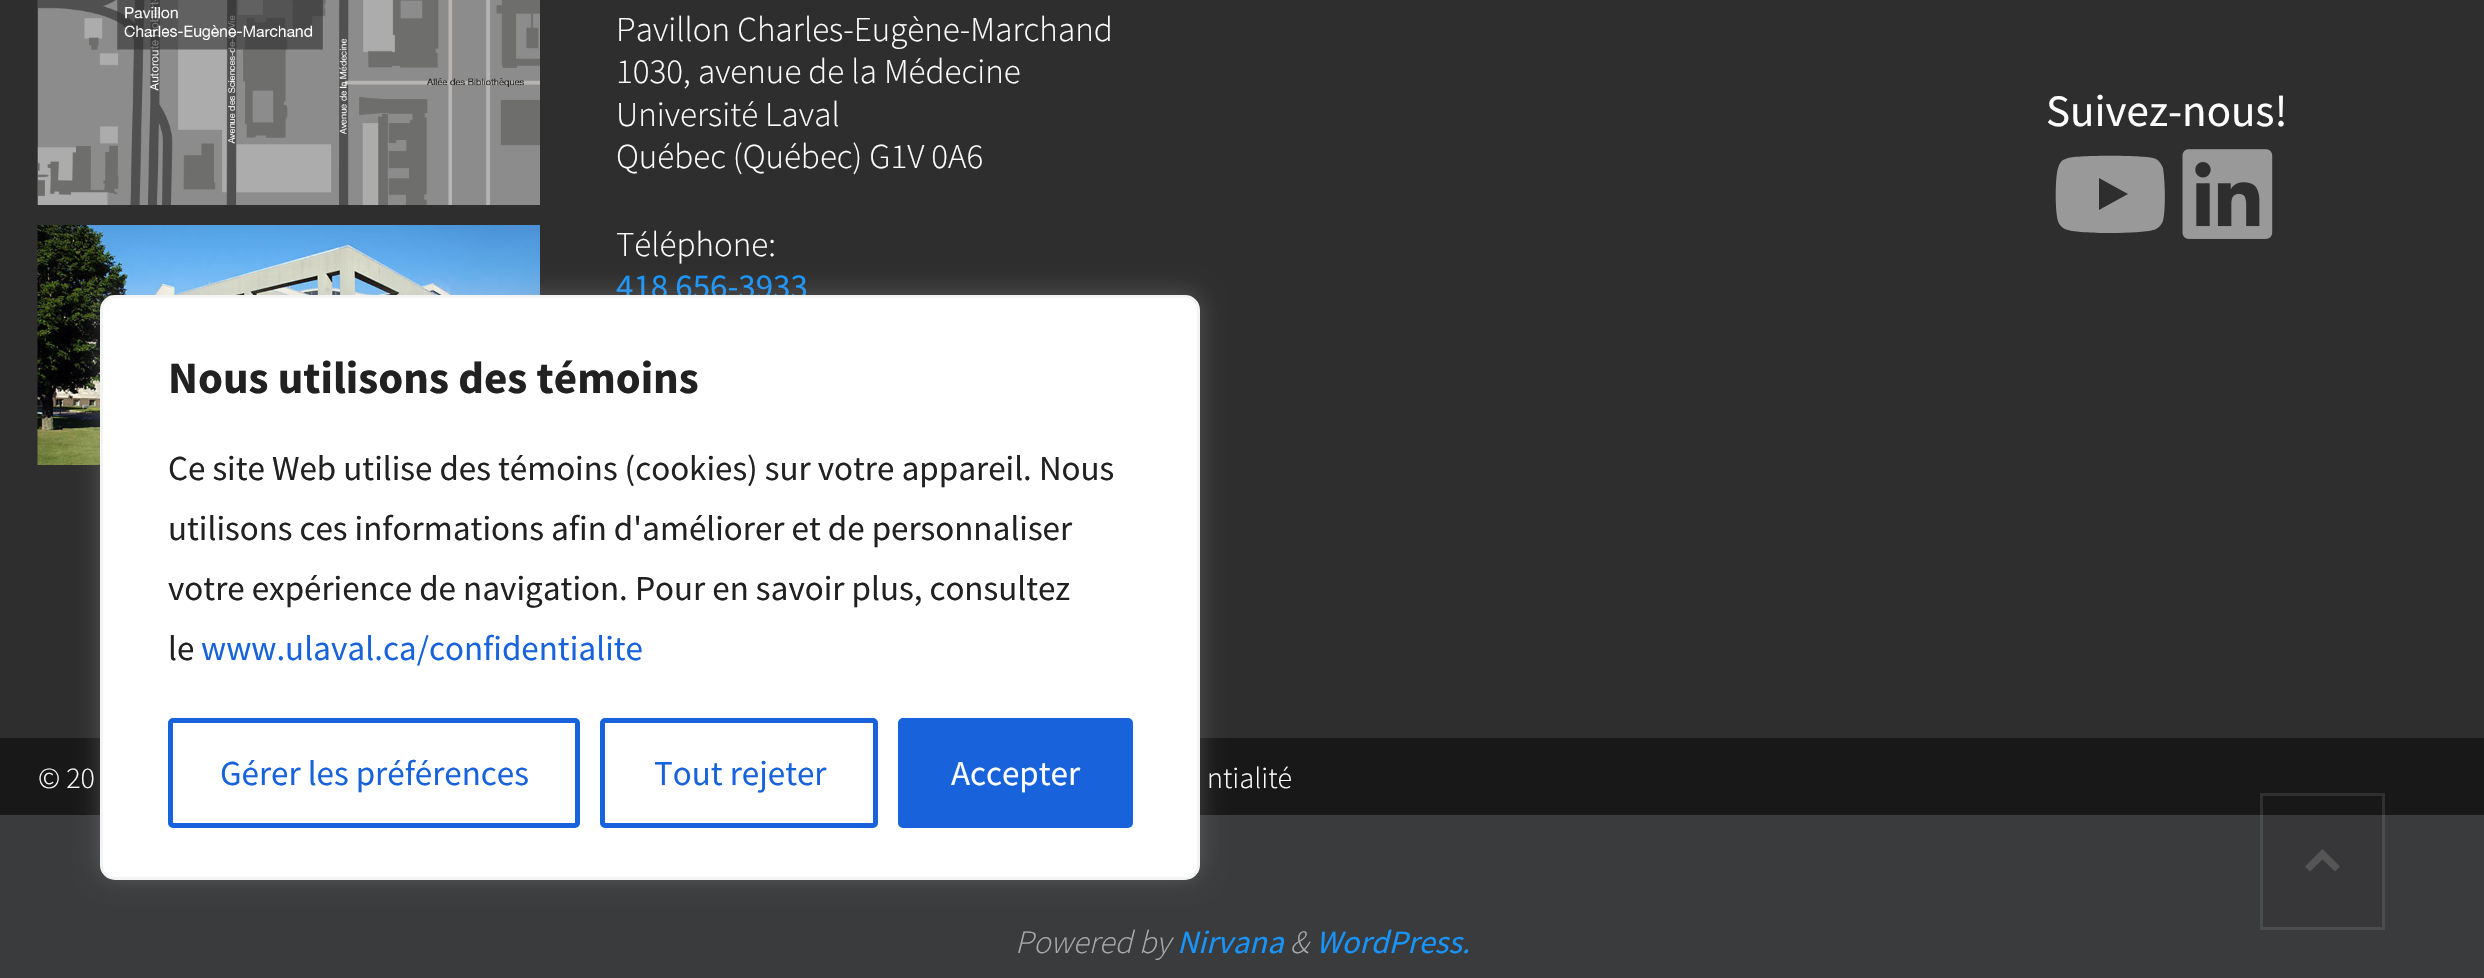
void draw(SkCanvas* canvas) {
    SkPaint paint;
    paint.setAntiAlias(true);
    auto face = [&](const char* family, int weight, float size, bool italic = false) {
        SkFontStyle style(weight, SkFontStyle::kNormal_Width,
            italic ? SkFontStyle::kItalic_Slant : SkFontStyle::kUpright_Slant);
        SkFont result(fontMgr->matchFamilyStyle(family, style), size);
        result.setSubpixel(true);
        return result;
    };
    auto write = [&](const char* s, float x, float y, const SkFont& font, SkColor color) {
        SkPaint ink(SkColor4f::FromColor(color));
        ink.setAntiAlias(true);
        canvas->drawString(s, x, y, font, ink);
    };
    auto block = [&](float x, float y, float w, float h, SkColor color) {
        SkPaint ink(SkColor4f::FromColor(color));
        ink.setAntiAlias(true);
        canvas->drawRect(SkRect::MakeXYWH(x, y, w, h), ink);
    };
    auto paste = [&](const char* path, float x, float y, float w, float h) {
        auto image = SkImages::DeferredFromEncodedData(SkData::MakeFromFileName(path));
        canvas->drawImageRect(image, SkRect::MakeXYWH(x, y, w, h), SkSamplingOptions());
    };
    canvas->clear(SkColorSetRGB(46, 46, 46));
    paste("pic1.png", 37, 0, 503, 205);
    paste("pic2.png", 37, 225, 503, 240);
    auto kFont1 = face("Source Sans Pro", 300, 35);
    write("Pavillon Charles-Eugène-Marchand", 616, 41, kFont1, SK_ColorWHITE);
    write("1030, avenue de la Médecine", 616, 83, kFont1, SK_ColorWHITE);
    write("Université Laval", 616, 126, kFont1, SK_ColorWHITE);
    write("Québec (Québec) G1V 0A6", 616, 168, kFont1, SK_ColorWHITE);
    write("Téléphone:", 616, 256, kFont1, SK_ColorWHITE);
    auto kFont2 = face("Source Sans Pro", 400, 35);
    write("418 656-3933", 616, 298, kFont2, SkColorSetRGB(24, 149, 253));
    auto kFont3 = face("Source Sans Pro", 400, 45);
    write("Suivez-nous!", 2046, 126, kFont3, SK_ColorWHITE);
    paint.setColor(SkColorSetRGB(153, 153, 153));
    canvas->drawPath(SkPathBuilder().moveTo(2163, 168).cubicTo(2161, 163, 2158, 159, 2153, 158).cubicTo(2142, 155, 2078, 155, 2068, 158).lineTo(2063, 160).cubicTo(2060, 162, 2059, 165, 2058, 168).cubicTo(2055, 178, 2055, 211, 2058, 221).cubicTo(2059, 225, 2063, 229, 2068, 230).cubicTo(2079, 234, 2141, 234, 2153, 230).cubicTo(2155, 230, 2157, 228, 2159, 227).cubicTo(2161, 225, 2162, 223, 2163, 221).cubicTo(2166, 209, 2165, 180, 2163, 168).close().moveTo(2099, 210).lineTo(2099, 178).lineTo(2099, 210).lineTo(2099, 178).lineTo(2128, 194).close().detach(), paint);
    paste("pic3.png", 2182, 149, 91, 90);
    block(0, 738, 2484, 77, SkColorSetRGB(24, 24, 24));
    auto kFont4 = face("Source Sans Pro", 300, 30);
    write("© 20", 38, 788, kFont4, SK_ColorWHITE);
    write("ntialité", 1207, 788, kFont4, SK_ColorWHITE);
    block(0, 815, 2484, 163, SkColorSetRGB(58, 59, 61));
    block(2260, 815, 125, 115, SkColorSetRGB(55, 55, 57));
    auto kFont5 = face("Source Sans Pro", 300, 32.5f, true);
    write("Powered by", 1015, 953, kFont5, SkColorSetRGB(170, 170, 170));
    auto kFont6 = face("Source Sans Pro", 400, 32.5f, true);
    write("Nirvana", 1177, 953, kFont6, SkColorSetRGB(24, 149, 253));
    write("&", 1290, 953, kFont5, SkColorSetRGB(170, 170, 170));
    write("WordPress.", 1316, 953, kFont6, SkColorSetRGB(24, 149, 253));
    paint.setStyle(SkPaint::kStroke_Style);
    paint.setStrokeWidth(3);
    paint.setColor(SkColorSetARGB(26, 255, 255, 255));
    canvas->drawRect(SkRect::MakeXYWH(2261.5f, 794.5f, 122, 134), paint);
    paint.setStyle(SkPaint::kFill_Style);
    paint.setColor(SkColorSetRGB(85, 85, 85));
    canvas->drawPath(SkPathBuilder().moveTo(2305, 866.5f).lineTo(2322.5f, 849).lineTo(2340, 866.5f).lineTo(2335, 871.5f).lineTo(2322.5f, 859.5f).lineTo(2310, 871.5f).close().detach(), paint);
    paint.setColor(SkColorSetARGB(77, 172, 171, 171));
    paint.setMaskFilter(SkMaskFilter::MakeBlur(kNormal_SkBlurStyle, 12.5f));
    canvas->drawRoundRect(SkRect::MakeXYWH(100, 293, 1100, 585), 15, 15, paint);
    paint.setMaskFilter(nullptr);
    paint.setColor(SK_ColorWHITE);
    canvas->drawRoundRect(SkRect::MakeXYWH(101.5f, 296.5f, 1097, 582), 13.5f, 13.5f, paint);
    paint.setStyle(SkPaint::kStroke_Style);
    paint.setColor(SkColorSetRGB(244, 244, 244));
    canvas->drawRoundRect(SkRect::MakeXYWH(101.5f, 296.5f, 1097, 582), 13.5f, 13.5f, paint);
    auto kFont7 = face("Source Sans Pro", 700, 45);
    write("Nous utilisons des témoins", 168, 393, kFont7, SkColorSetRGB(33, 33, 33));
    write("Ce site Web utilise des témoins (cookies) sur votre appareil. Nous", 168, 480, kFont2, SkColorSetRGB(33, 33, 33));
    write("utilisons ces informations afin d'améliorer et de personnaliser", 168, 540, kFont2, SkColorSetRGB(33, 33, 33));
    write("votre expérience de navigation. Pour en savoir plus, consultez", 168, 600, kFont2, SkColorSetRGB(33, 33, 33));
    write("le", 168, 660, kFont2, SkColorSetRGB(33, 33, 33));
    write("www.ulaval.ca/confidentialite", 201, 660, kFont2, SkColorSetRGB(24, 99, 220));
    paint.setStrokeWidth(5);
    paint.setColor(SkColorSetRGB(24, 99, 220));
    canvas->drawRoundRect(SkRect::MakeXYWH(170.5f, 720.5f, 407, 105), 2.5f, 2.5f, paint);
    write("Gérer les préférences", 220, 785, kFont2, SkColorSetRGB(24, 99, 220));
    canvas->drawRoundRect(SkRect::MakeXYWH(602.5f, 720.5f, 273, 105), 2.5f, 2.5f, paint);
    write("Tout rejeter", 654, 785, kFont2, SkColorSetRGB(24, 99, 220));
    paint.setStyle(SkPaint::kFill_Style);
    canvas->drawRoundRect(SkRect::MakeXYWH(900.5f, 720.5f, 230, 105), 2.5f, 2.5f, paint);
    paint.setStyle(SkPaint::kStroke_Style);
    canvas->drawRoundRect(SkRect::MakeXYWH(900.5f, 720.5f, 230, 105), 2.5f, 2.5f, paint);
    write("Accepter", 951, 785, kFont2, SK_ColorWHITE);
}
